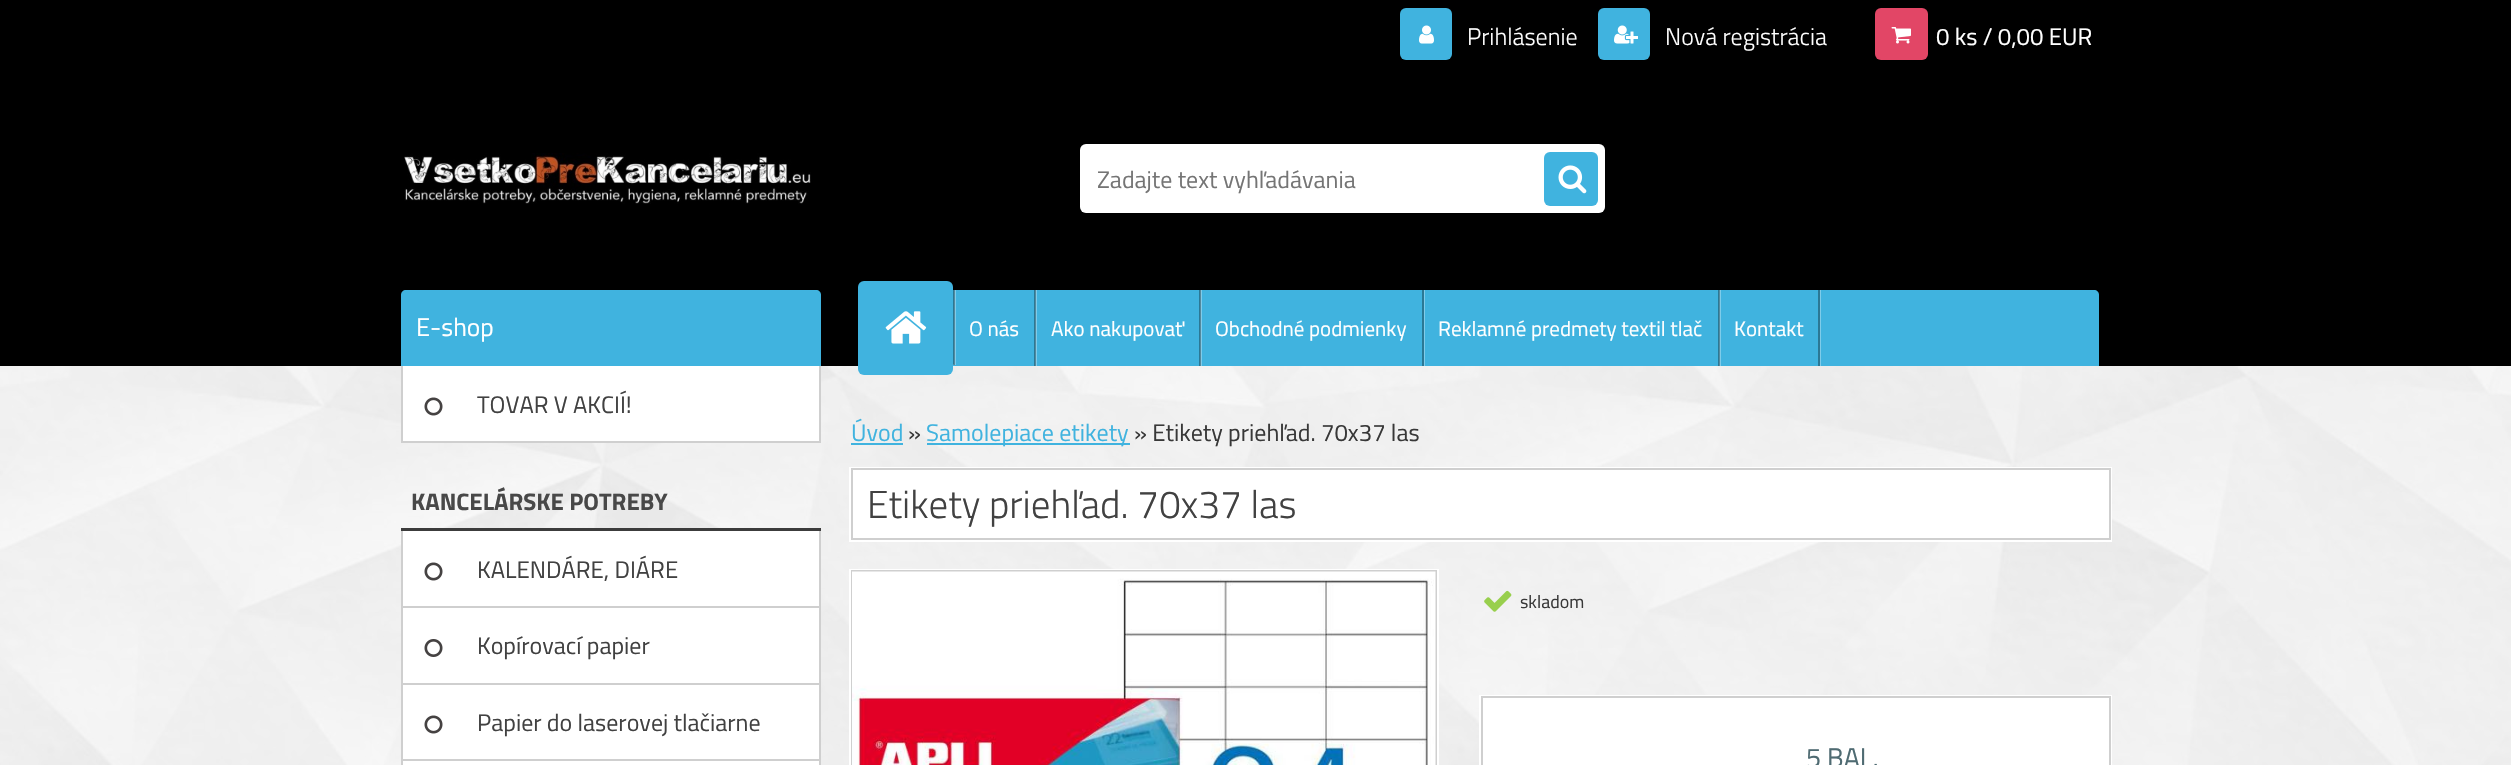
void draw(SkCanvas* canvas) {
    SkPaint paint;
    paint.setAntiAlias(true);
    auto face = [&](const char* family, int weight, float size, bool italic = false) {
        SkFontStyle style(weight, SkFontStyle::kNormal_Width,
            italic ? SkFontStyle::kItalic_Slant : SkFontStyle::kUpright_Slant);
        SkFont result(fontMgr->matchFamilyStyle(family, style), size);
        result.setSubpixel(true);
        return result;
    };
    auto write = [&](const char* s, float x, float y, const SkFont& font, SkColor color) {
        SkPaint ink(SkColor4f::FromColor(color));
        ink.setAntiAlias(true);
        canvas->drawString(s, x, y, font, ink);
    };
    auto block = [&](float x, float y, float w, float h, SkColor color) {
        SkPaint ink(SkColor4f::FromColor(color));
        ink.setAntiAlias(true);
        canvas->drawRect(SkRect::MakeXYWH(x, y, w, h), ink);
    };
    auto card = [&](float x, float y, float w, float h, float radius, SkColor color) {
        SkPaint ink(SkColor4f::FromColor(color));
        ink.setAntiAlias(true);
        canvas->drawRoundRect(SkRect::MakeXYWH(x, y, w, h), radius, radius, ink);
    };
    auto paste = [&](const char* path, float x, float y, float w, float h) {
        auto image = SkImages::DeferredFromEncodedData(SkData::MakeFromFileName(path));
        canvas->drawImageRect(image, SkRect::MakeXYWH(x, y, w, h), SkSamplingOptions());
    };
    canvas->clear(SK_ColorWHITE);
    paste("pic1.png", 0, 366, 2511, 399);
    block(0, 0, 2511, 366, SK_ColorBLACK);
    card(1400, 8, 52, 52, 6, SkColorSetRGB(64, 179, 223));
    paste("pic2.png", 1419, 25, 15, 19);
    auto kFont1 = face("Titillium Web", 300, 24);
    write("Prihlásenie", 1467, 45, kFont1, SK_ColorWHITE);
    card(1598, 8, 52, 52, 6, SkColorSetRGB(64, 179, 223));
    paste("pic3.png", 1614, 25, 24, 19);
    write("Nová registrácia", 1665, 45, kFont1, SK_ColorWHITE);
    card(1875, 8, 53, 52, 6, SkColorSetRGB(226, 70, 102));
    paste("pic4.png", 1891, 27, 20, 17);
    auto kFont2 = face("Titillium Web", 400, 24);
    write("0 ks / 0,00 EUR", 1936, 45, kFont2, SK_ColorWHITE);
    paint.setColor(SkColorSetRGB(64, 179, 223));
    canvas->drawPath(SkPathBuilder().moveTo(406, 290).lineTo(816, 290).cubicTo(819, 290, 821, 292, 821, 295).lineTo(821, 366).lineTo(401, 366).lineTo(401, 295).cubicTo(401, 292, 403, 290, 406, 290).close().detach(), paint);
    auto kFont3 = face("Titillium Web", 400, 25.5f);
    write("E-shop", 416, 336, kFont3, SK_ColorWHITE);
    block(403, 366, 416, 75, SK_ColorWHITE);
    block(819, 366, 2, 77, SkColorSetRGB(207, 207, 207));
    block(401, 441, 420, 2, SkColorSetRGB(207, 207, 207));
    block(401, 366, 2, 77, SkColorSetRGB(207, 207, 207));
    paste("pic5.png", 424, 397, 19, 19);
    write("TOVAR V AKCIÍ!", 477, 413, kFont2, SkColorSetRGB(65, 65, 65));
    block(401, 528, 420, 3, SkColorSetRGB(60, 60, 60));
    auto kFont4 = face("Titillium Web", 700, 24);
    write("KANCELÁRSKE POTREBY", 411, 510, kFont4, SkColorSetRGB(72, 72, 72));
    block(403, 531, 416, 75, SK_ColorWHITE);
    block(819, 531, 2, 153, SkColorSetRGB(207, 207, 207));
    block(401, 606, 420, 2, SkColorSetRGB(207, 207, 207));
    block(401, 531, 2, 77, SkColorSetRGB(207, 207, 207));
    paste("pic5.png", 424, 562, 19, 19);
    write("KALENDÁRE, DIÁRE", 477, 578, kFont2, SkColorSetRGB(65, 65, 65));
    block(403, 608, 416, 75, SK_ColorWHITE);
    block(401, 683, 420, 2, SkColorSetRGB(207, 207, 207));
    block(401, 608, 2, 76, SkColorSetRGB(207, 207, 207));
    paste("pic6.png", 424, 639, 19, 18);
    write("Kopírovací papier", 477, 654, kFont2, SkColorSetRGB(65, 65, 65));
    block(403, 685, 416, 74, SK_ColorWHITE);
    block(401, 761, 420, 4, SK_ColorWHITE);
    block(819, 684, 2, 81, SkColorSetRGB(207, 207, 207));
    block(401, 759, 420, 2, SkColorSetRGB(207, 207, 207));
    block(401, 684, 2, 81, SkColorSetRGB(207, 207, 207));
    paste("pic5.png", 424, 715, 19, 19);
    write("Papier do laserovej tlačiarne", 477, 731, kFont2, SkColorSetRGB(65, 65, 65));
    write("Úvod", 851, 441, kFont2, SkColorSetRGB(64, 179, 223));
    block(851, 443, 52, 2, SkColorSetRGB(64, 179, 223));
    write("»", 908, 441, kFont2, SkColorSetRGB(56, 56, 56));
    block(927, 443, 203, 2, SkColorSetRGB(64, 179, 223));
    write("Samolepiace etikety", 926, 441, kFont2, SkColorSetRGB(64, 179, 223));
    write("» Etikety priehľad. 70x37 las", 1134, 441, kFont2, SkColorSetRGB(56, 56, 56));
    paint.setStyle(SkPaint::kStroke_Style);
    paint.setStrokeWidth(2);
    paint.setColor(SK_ColorWHITE);
    canvas->drawRect(SkRect::MakeXYWH(850, 468, 1261, 73), paint);
    paint.setStyle(SkPaint::kFill_Style);
    canvas->drawRect(SkRect::MakeXYWH(852, 469, 1258, 70), paint);
    paint.setStyle(SkPaint::kStroke_Style);
    paint.setColor(SkColorSetRGB(207, 207, 207));
    canvas->drawRect(SkRect::MakeXYWH(852, 469, 1258, 70), paint);
    auto kFont5 = face("Titillium Web", 300, 39);
    write("Etikety priehľad. 70x37 las", 867, 518, kFont5, SkColorSetRGB(65, 65, 65));
    paint.setColor(SK_ColorWHITE);
    canvas->drawRect(SkRect::MakeXYWH(850, 570, 588, 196), paint);
    paint.setColor(SkColorSetRGB(207, 207, 207));
    canvas->drawRect(SkRect::MakeXYWH(852, 571, 584, 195), paint);
    paste("pic7.png", 852, 571, 584, 194);
    paste("pic8.png", 1484, 590, 28, 22);
    auto kFont6 = face("Titillium Web", 400, 18);
    write("skladom", 1520, 608, kFont6, SkColorSetRGB(56, 56, 56));
    paint.setColor(SK_ColorWHITE);
    canvas->drawRect(SkRect::MakeXYWH(1480, 696, 631, 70), paint);
    block(1483, 698, 626, 67, SK_ColorWHITE);
    block(1481, 696, 630, 2, SkColorSetRGB(207, 207, 207));
    block(2109, 696, 2, 69, SkColorSetRGB(207, 207, 207));
    block(1481, 696, 2, 69, SkColorSetRGB(207, 207, 207));
    auto kFont7 = face("Titillium Web", 400, 27);
    write("5 BAL.", 1806, 767, kFont7, SkColorSetRGB(79, 107, 114));
    paint.setStyle(SkPaint::kFill_Style);
    paint.setColor(SkColorSetRGB(64, 179, 223));
    canvas->drawPath(SkPathBuilder().moveTo(866, 290).lineTo(2094, 290).cubicTo(2097, 290, 2099, 292, 2099, 295).lineTo(2099, 366).lineTo(861, 366).lineTo(861, 295).cubicTo(861, 292, 863, 290, 866, 290).close().detach(), paint);
    block(1718, 290, 1, 76, SkColorSetRGB(43, 120, 149));
    block(1199, 290, 1, 76, SkColorSetRGB(43, 120, 149));
    block(1034, 290, 1, 76, SkColorSetRGB(43, 120, 149));
    paint.setColor(SkColorSetRGB(127, 204, 234));
    canvas->drawPath(SkPathBuilder().moveTo(885, 364).lineTo(885, 365).lineTo(956, 365).lineTo(956, 290).lineTo(954, 290).lineTo(954, 364).close().detach(), paint);
    block(953, 290, 2, 75, SkColorSetARGB(84, 0, 0, 0));
    card(858, 281, 95, 94, 6, SkColorSetRGB(64, 179, 223));
    paste("pic9.png", 885, 311, 42, 33);
    block(1036, 290, 1, 76, SkColorSetRGB(127, 204, 234));
    block(1035, 290, 1, 76, SkColorSetRGB(85, 137, 157));
    auto kFont8 = face("Titillium Web", 400, 21);
    write("O nás", 969, 336, kFont8, SK_ColorWHITE);
    block(1201, 290, 1, 76, SkColorSetRGB(127, 204, 234));
    block(1200, 290, 1, 76, SkColorSetRGB(85, 137, 157));
    write("Ako nakupovať", 1051, 336, kFont8, SK_ColorWHITE);
    block(1424, 290, 1, 76, SkColorSetRGB(127, 204, 234));
    block(1422, 290, 2, 76, SkColorSetRGB(43, 120, 149));
    write("Obchodné podmienky", 1215, 336, kFont8, SK_ColorWHITE);
    block(1720, 290, 1, 76, SkColorSetRGB(127, 204, 234));
    block(1719, 290, 1, 76, SkColorSetRGB(85, 137, 157));
    write("Reklamné predmety textil tlač", 1438, 336, kFont8, SK_ColorWHITE);
    block(1820, 290, 1, 76, SkColorSetRGB(127, 204, 234));
    block(1818, 290, 2, 76, SkColorSetRGB(43, 120, 149));
    write("Kontakt", 1734, 336, kFont8, SK_ColorWHITE);
    paste("pic10.png", 404, 153, 407, 51);
    card(1080, 144, 525, 69, 6, SK_ColorWHITE);
    write("Zadajte text vyhľadávania", 1097, 188, kFont2, SkColorSetRGB(117, 117, 117));
    card(1544, 152, 54, 54, 6, SkColorSetRGB(64, 179, 223));
    paste("pic11.png", 1558, 165, 29, 29);
}
